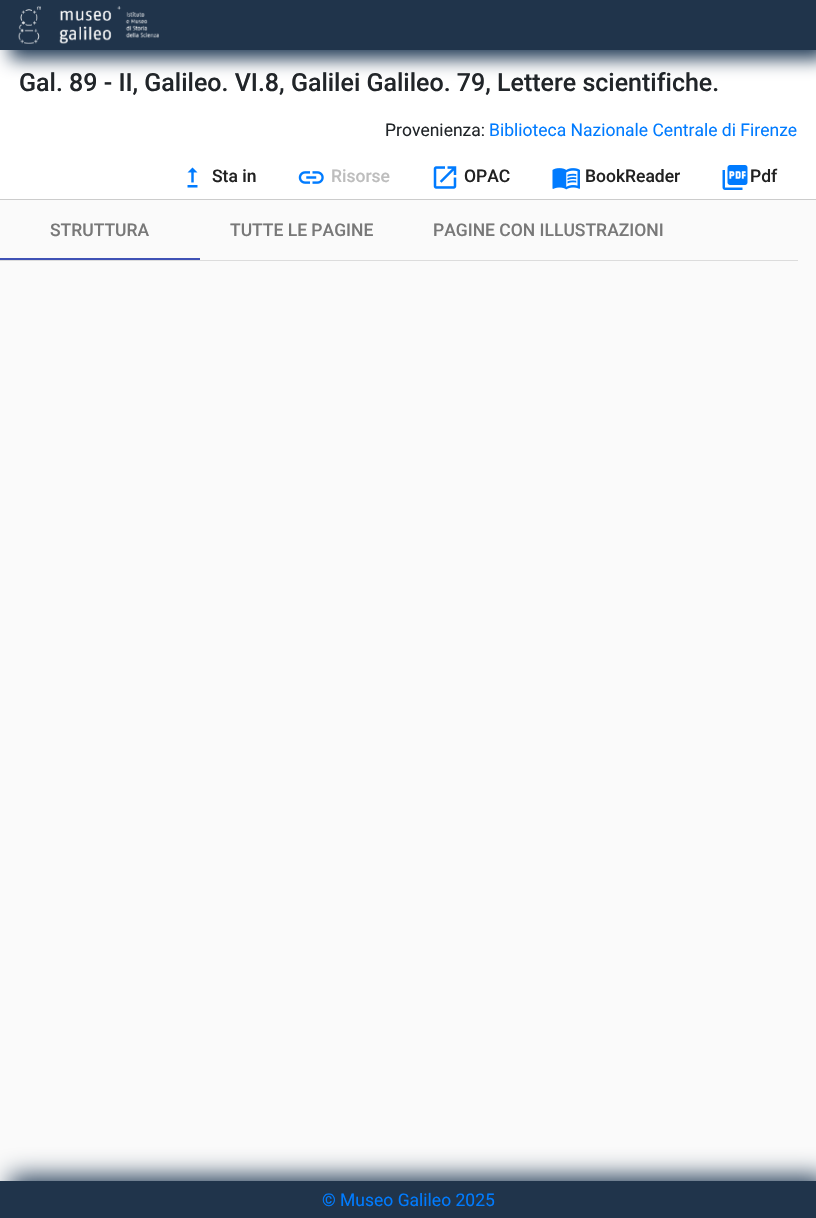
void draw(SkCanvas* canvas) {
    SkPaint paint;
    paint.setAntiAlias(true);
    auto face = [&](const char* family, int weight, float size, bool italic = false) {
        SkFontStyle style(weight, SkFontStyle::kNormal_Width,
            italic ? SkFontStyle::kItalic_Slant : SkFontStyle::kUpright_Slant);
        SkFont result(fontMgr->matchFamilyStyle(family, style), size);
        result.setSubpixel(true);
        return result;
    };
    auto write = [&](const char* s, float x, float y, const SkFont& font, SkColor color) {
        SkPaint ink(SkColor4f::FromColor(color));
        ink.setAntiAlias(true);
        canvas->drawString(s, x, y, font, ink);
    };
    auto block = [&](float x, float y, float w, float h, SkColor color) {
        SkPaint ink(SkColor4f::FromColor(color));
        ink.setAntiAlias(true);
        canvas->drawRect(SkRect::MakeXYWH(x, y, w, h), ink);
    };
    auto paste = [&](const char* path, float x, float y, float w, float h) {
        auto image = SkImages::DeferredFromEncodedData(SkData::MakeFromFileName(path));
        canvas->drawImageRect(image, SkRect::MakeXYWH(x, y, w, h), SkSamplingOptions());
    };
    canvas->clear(SK_ColorWHITE);
    paint.setColor(SkColorSetRGB(37, 62, 89));
    paint.setMaskFilter(SkMaskFilter::MakeBlur(kNormal_SkBlurStyle, 9));
    canvas->drawRect(SkRect::MakeXYWH(10, 9, 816, 50), paint);
    paint.setMaskFilter(nullptr);
    block(0, 0, 816, 50, SkColorSetRGB(32, 52, 75));
    paste("pic1.png", 18, 6, 141, 38);
    block(0, 199, 816, 1, SkColorSetRGB(204, 204, 204));
    auto kFont1 = face("Roboto", 500, 25);
    write("Gal. 89 - II, Galileo. VI.8, Galilei Galileo. 79, Lettere scientifiche.", 19, 91, kFont1, SkColorSetRGB(33, 37, 41));
    auto kFont2 = face("Roboto", 400, 17.5f);
    write("Provenienza:", 385, 136, kFont2, SkColorSetRGB(33, 37, 41));
    write("Biblioteca Nazionale Centrale di Firenze", 489, 136, kFont2, SkColorSetRGB(0, 123, 255));
    paste("pic2.png", 187, 167, 11, 21);
    auto kFont3 = face("Roboto", 500, 17.5f);
    write("Sta in", 212, 182, kFont3, SkColorSetRGB(33, 33, 33));
    paste("pic3.png", 298, 171, 26, 13);
    write("Risorse", 331, 182, kFont3, SkColorSetRGB(189, 189, 189));
    paste("pic4.png", 433, 166, 24, 23);
    write("OPAC", 464, 182, kFont3, SkColorSetRGB(33, 33, 33));
    paste("pic5.png", 552, 168, 28, 22);
    write("BookReader", 585, 182, kFont3, SkColorSetRGB(33, 33, 33));
    paste("pic6.png", 722, 165, 26, 25);
    write("Pdf", 750, 182, kFont3, SkColorSetRGB(33, 33, 33));
    block(0, 200, 816, 981, SkColorSetRGB(250, 250, 250));
    block(0, 260, 798, 1, SkColorSetRGB(220, 220, 220));
    write("STRUTTURA", 50, 236, kFont3, SkColorSetRGB(120, 120, 120));
    write("TUTTE LE PAGINE", 230, 236, kFont3, SkColorSetRGB(120, 120, 120));
    write("PAGINE CON ILLUSTRAZIONI", 433, 236, kFont3, SkColorSetRGB(120, 120, 120));
    block(0, 258, 200, 2, SkColorSetRGB(63, 81, 181));
    paint.setMaskFilter(SkMaskFilter::MakeBlur(kNormal_SkBlurStyle, 12));
    canvas->drawRect(SkRect::MakeXYWH(10, 1176, 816, 38), paint);
    paint.setMaskFilter(nullptr);
    block(0, 1181, 816, 37, SkColorSetRGB(32, 52, 75));
    write("© Museo Galileo 2025", 322, 1206, kFont2, SkColorSetRGB(0, 123, 255));
}
